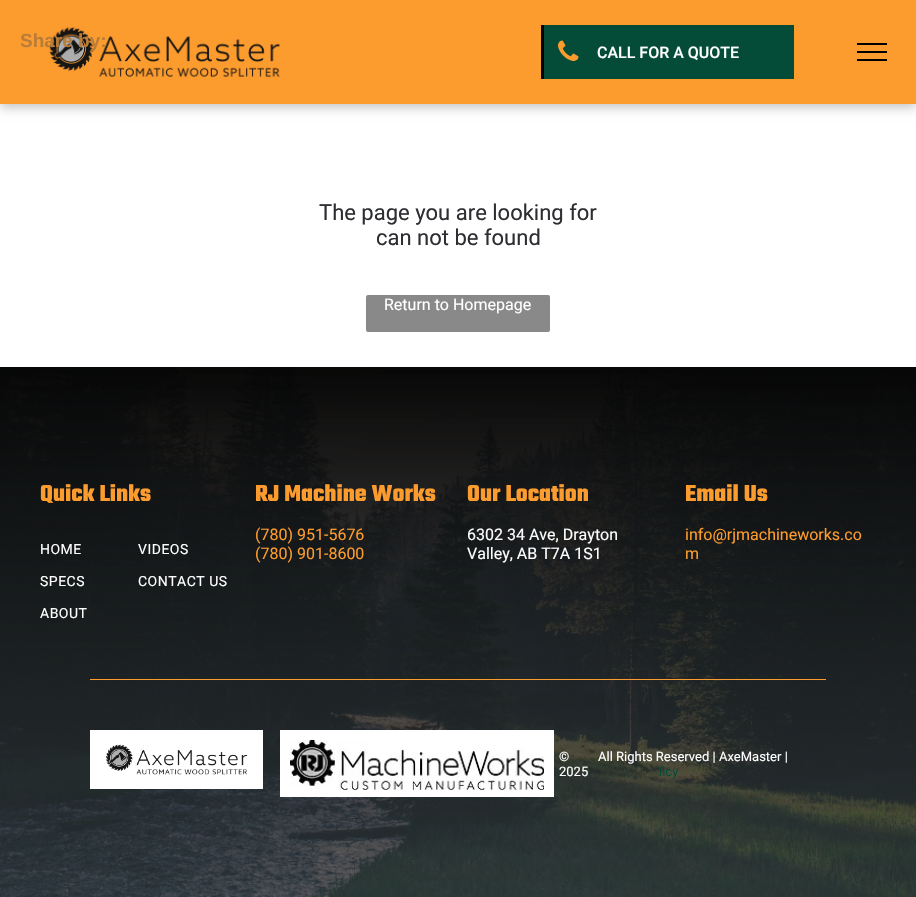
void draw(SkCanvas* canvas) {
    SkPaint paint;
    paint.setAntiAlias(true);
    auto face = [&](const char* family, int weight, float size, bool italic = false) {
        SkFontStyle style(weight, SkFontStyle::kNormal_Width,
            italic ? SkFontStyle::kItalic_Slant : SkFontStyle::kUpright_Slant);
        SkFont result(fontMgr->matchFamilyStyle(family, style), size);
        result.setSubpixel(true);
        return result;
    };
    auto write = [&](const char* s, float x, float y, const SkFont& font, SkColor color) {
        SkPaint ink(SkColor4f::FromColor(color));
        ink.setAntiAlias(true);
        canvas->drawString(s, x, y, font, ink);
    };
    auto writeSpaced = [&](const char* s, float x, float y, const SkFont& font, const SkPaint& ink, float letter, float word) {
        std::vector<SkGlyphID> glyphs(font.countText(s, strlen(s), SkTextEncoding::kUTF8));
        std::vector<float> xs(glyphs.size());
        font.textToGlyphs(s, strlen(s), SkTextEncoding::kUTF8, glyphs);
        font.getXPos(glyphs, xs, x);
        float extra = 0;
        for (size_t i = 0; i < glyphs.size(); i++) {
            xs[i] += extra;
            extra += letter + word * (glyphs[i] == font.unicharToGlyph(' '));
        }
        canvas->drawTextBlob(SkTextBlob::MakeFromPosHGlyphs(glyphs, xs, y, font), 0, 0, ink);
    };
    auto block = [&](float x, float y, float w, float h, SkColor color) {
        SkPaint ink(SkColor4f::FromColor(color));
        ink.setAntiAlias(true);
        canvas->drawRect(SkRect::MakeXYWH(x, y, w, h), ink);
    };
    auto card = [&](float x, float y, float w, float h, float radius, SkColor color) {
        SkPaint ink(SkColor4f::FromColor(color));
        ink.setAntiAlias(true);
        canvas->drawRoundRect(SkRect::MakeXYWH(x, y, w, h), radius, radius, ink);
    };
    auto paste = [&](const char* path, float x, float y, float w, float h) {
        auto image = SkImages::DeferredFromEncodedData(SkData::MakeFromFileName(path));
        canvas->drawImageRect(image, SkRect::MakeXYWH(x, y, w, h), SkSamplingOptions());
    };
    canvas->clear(SK_ColorWHITE);
    paint.setColor(SkColorSetARGB(64, 0, 0, 0));
    paint.setMaskFilter(SkMaskFilter::MakeBlur(kNormal_SkBlurStyle, 5.5f));
    canvas->drawRect(SkRect::MakeXYWH(0, 3, 916, 104), paint);
    paint.setMaskFilter(nullptr);
    block(0, 0, 916, 104, SkColorSetRGB(253, 156, 46));
    paste("pic1.png", 49, 26, 231, 51);
    auto kFont1 = face("Liberation Sans", 700, 19);
    write("Share by:", 20, 47, kFont1, SkColorSetRGB(186, 125, 56));
    block(544, 25, 250, 54, SkColorSetRGB(4, 76, 56));
    block(541, 25, 3, 54, SK_ColorBLACK);
    paste("pic2.png", 558, 40, 21, 21);
    auto kFont2 = face("Roboto", 500, 16);
    write("CALL FOR A QUOTE", 597, 58, kFont2, SK_ColorWHITE);
    block(857, 43, 30, 2, SK_ColorBLACK);
    block(857, 51, 30, 2, SK_ColorBLACK);
    block(857, 59, 30, 2, SK_ColorBLACK);
    auto kFont3 = face("Roboto", 400, 22);
    write("The page you are looking for", 319, 220, kFont3, SkColorSetRGB(45, 46, 50));
    write("can not be found", 376, 245, kFont3, SkColorSetRGB(45, 46, 50));
    card(366, 295, 184, 37, 2, SkColorSetRGB(137, 137, 137));
    auto kFont4 = face("Roboto", 400, 16);
    write("Return to Homepage", 384, 310, kFont4, SK_ColorWHITE);
    paste("pic3.png", 0, 367, 916, 530);
    auto kFont5 = face("Teko", 700, 25);
    write("Quick Links", 40, 501, kFont5, SkColorSetRGB(253, 156, 46));
    auto kFont6 = face("Roboto", 400, 14);
    paint.setColor(SK_ColorWHITE);
    writeSpaced("HOME", 40, 554, kFont6, paint, 0.5f, 0);
    writeSpaced("SPECS", 40, 586, kFont6, paint, 0.5f, 0);
    writeSpaced("ABOUT", 40, 618, kFont6, paint, 0.5f, 0);
    writeSpaced("VIDEOS", 138, 554, kFont6, paint, 0.5f, 0);
    writeSpaced("CONTACT US", 138, 586, kFont6, paint, 0.5f, 0);
    write("RJ Machine Works", 255, 501, kFont5, SkColorSetRGB(253, 156, 46));
    write("(780) 951-5676", 255, 540, kFont4, SkColorSetRGB(253, 156, 46));
    write("(780) 901-8600", 255, 559, kFont4, SkColorSetRGB(253, 156, 46));
    write("Our Location", 467, 501, kFont5, SkColorSetRGB(253, 156, 46));
    write("6302 34 Ave, Drayton", 467, 540, kFont4, SK_ColorWHITE);
    write("Valley, AB T7A 1S1", 467, 559, kFont4, SK_ColorWHITE);
    write("Email Us", 685, 501, kFont5, SkColorSetRGB(253, 156, 46));
    write("info@rjmachineworks.co", 685, 540, kFont4, SkColorSetRGB(253, 156, 46));
    write("m", 685, 559, kFont4, SkColorSetRGB(253, 156, 46));
    block(90, 679, 736, 1, SkColorSetRGB(253, 156, 46));
    block(90, 730, 173, 59, SK_ColorWHITE);
    paste("pic4.png", 105, 744, 143, 31);
    block(280, 730, 274, 67, SK_ColorWHITE);
    paste("pic5.png", 290, 740, 254, 50);
    auto kFont7 = face("Roboto", 400, 13);
    write("©", 559, 761, kFont7, SK_ColorWHITE);
    write("2025", 559, 776, kFont7, SK_ColorWHITE);
    write("All Rights Reserved | AxeMaster |", 598, 761, kFont7, SK_ColorWHITE);
    write("licy", 659, 776, kFont7, SkColorSetRGB(4, 76, 56));
}
